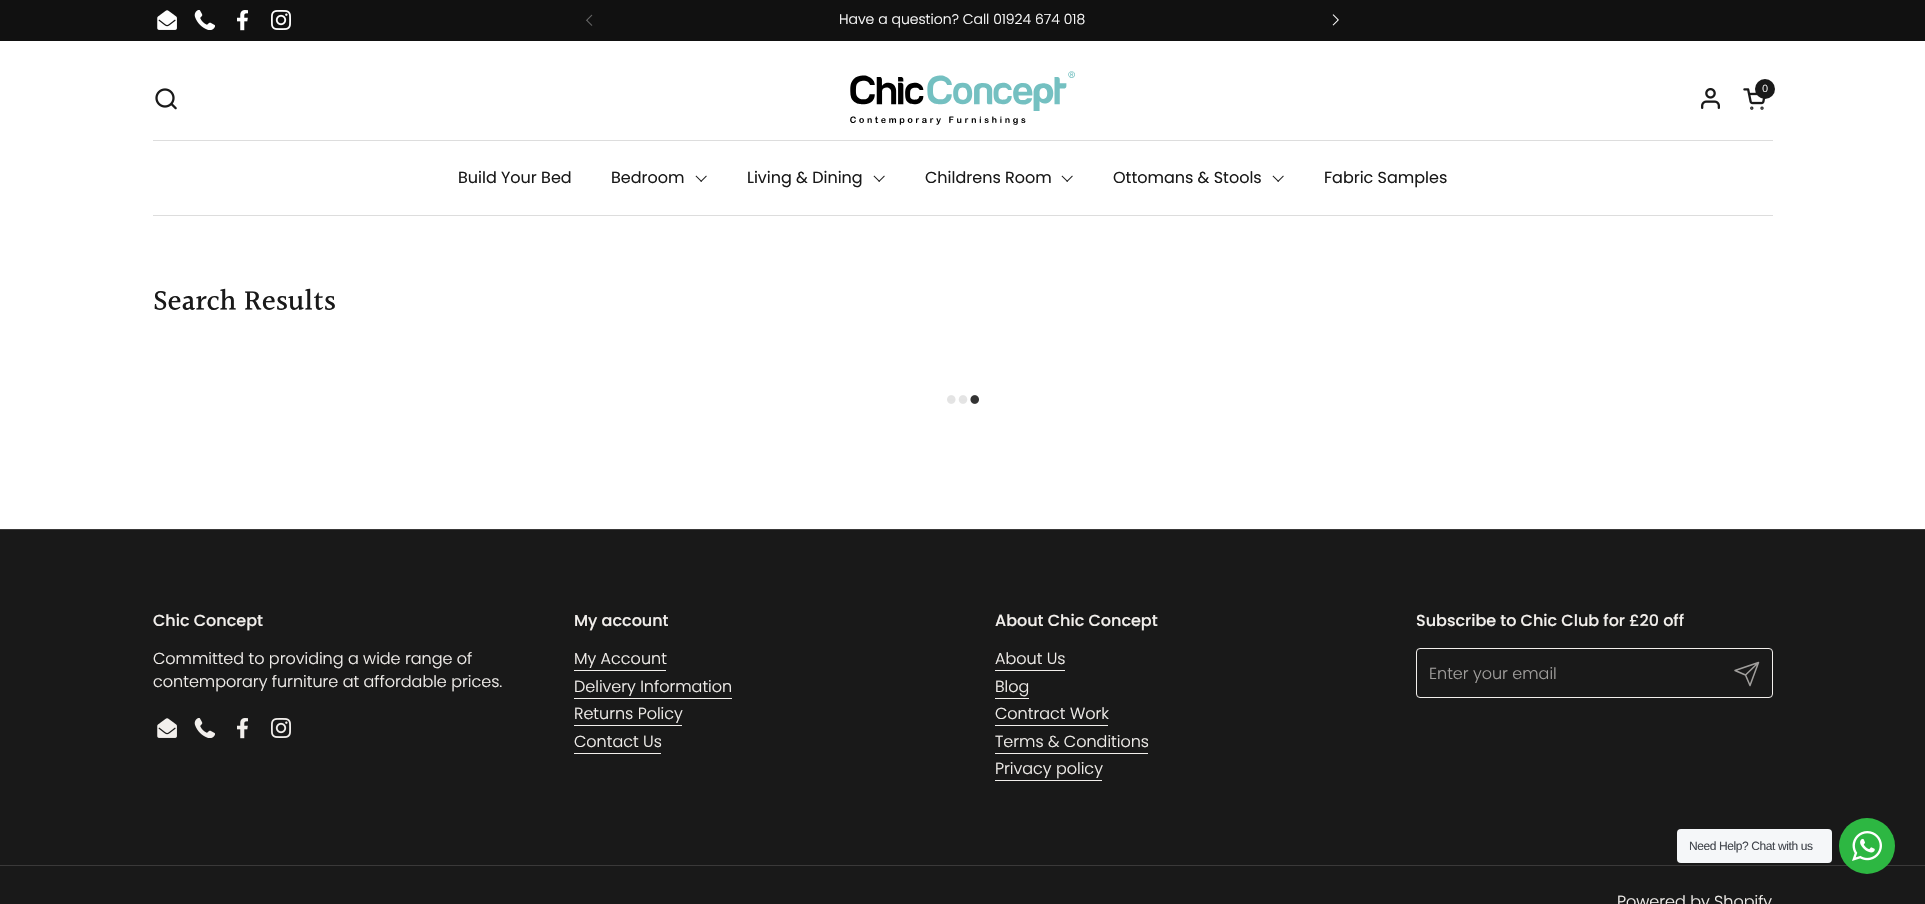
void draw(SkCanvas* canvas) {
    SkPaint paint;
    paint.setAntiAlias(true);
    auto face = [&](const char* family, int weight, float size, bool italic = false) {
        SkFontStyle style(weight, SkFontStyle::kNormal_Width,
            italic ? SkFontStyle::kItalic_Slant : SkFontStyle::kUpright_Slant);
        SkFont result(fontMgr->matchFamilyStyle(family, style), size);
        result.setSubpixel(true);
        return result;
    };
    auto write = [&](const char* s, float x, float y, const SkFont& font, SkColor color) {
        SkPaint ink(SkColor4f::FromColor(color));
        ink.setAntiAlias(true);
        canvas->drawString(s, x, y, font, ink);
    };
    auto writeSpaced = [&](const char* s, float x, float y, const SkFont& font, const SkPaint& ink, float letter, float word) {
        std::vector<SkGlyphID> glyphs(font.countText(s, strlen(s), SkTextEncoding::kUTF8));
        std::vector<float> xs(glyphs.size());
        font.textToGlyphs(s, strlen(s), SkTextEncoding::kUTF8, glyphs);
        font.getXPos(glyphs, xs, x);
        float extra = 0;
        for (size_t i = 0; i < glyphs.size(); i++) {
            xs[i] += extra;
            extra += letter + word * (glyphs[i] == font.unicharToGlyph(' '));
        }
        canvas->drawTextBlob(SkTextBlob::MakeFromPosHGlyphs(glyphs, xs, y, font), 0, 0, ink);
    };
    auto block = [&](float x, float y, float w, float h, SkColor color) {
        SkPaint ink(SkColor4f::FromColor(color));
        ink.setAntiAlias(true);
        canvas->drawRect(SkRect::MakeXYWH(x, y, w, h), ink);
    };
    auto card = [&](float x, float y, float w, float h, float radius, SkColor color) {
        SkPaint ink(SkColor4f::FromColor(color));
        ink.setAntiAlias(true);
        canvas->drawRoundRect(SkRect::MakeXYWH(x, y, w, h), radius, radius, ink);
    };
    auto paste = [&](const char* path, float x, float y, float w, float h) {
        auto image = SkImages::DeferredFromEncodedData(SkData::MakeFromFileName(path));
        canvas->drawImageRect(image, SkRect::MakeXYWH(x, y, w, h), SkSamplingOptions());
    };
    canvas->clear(SK_ColorWHITE);
    block(0, 0, 1925, 41, SkColorSetRGB(17, 17, 17));
    paste("pic1.png", 157, 10, 20, 20);
    paste("pic2.png", 194, 10, 21, 20);
    paste("pic3.png", 237, 10, 11, 21);
    paste("pic4.png", 271, 10, 20, 20);
    paste("pic5.png", 586, 14, 7, 12);
    auto kFont1 = face("Poppins", 300, 14);
    write("Have a question? Call 01924 674 018", 839, 24, kFont1, SK_ColorWHITE);
    paste("pic6.png", 1332, 14, 7, 12);
    paste("pic7.png", 155, 88, 22, 22);
    paste("pic8.png", 850, 71, 225, 54);
    paste("pic9.png", 1701, 88, 19, 21);
    paint.setColor(SkColorSetRGB(25, 25, 25));
    canvas->drawCircle(1765, 89, 10, paint);
    auto kFont2 = face("Poppins", 300, 10);
    write("0", 1762, 92, kFont2, SK_ColorWHITE);
    paste("pic10.png", 1743, 88, 22, 22);
    block(153, 140, 1620, 1, SkColorSetRGB(221, 221, 221));
    auto kFont3 = face("Poppins", 400, 16);
    write("Build Your Bed", 458, 183, kFont3, SkColorSetRGB(25, 25, 25));
    write("Bedroom", 611, 183, kFont3, SkColorSetRGB(25, 25, 25));
    paste("pic11.png", 695, 175, 12, 7);
    write("Living & Dining", 747, 183, kFont3, SkColorSetRGB(25, 25, 25));
    paste("pic11.png", 873, 175, 12, 7);
    write("Childrens Room", 925, 183, kFont3, SkColorSetRGB(25, 25, 25));
    paste("pic11.png", 1061, 175, 12, 7);
    write("Ottomans & Stools", 1113, 183, kFont3, SkColorSetRGB(25, 25, 25));
    paste("pic11.png", 1272, 175, 12, 7);
    write("Fabric Samples", 1324, 183, kFont3, SkColorSetRGB(25, 25, 25));
    block(153, 215, 1620, 1, SkColorSetRGB(221, 221, 221));
    auto kFont4 = face("Halant", 500, 29.25f);
    write("Search Results", 153, 311, kFont4, SkColorSetRGB(25, 25, 25));
    paste("pic12.png", 947, 395, 32, 9);
    block(0, 530, 1925, 374, SkColorSetRGB(25, 25, 25));
    block(0, 529, 1925, 1, SkColorSetRGB(58, 57, 57));
    auto kFont5 = face("Poppins", 500, 16);
    write("Chic Concept", 153, 626, kFont5, SkColorSetRGB(242, 239, 236));
    auto kFont6 = face("Poppins", 300, 16);
    write("Committed to providing a wide range of", 153, 664, kFont6, SkColorSetRGB(242, 239, 236));
    write("contemporary furniture at affordable prices.", 153, 687, kFont6, SkColorSetRGB(242, 239, 236));
    paste("pic13.png", 157, 718, 20, 20);
    paste("pic14.png", 194, 718, 21, 20);
    paste("pic15.png", 237, 718, 11, 21);
    paste("pic16.png", 271, 718, 20, 20);
    write("My account", 574, 626, kFont5, SkColorSetRGB(242, 239, 236));
    write("My Account", 574, 664, kFont6, SkColorSetRGB(242, 239, 236));
    block(574, 670, 92, 1, SkColorSetRGB(242, 239, 236));
    write("Delivery Information", 574, 692, kFont6, SkColorSetRGB(242, 239, 236));
    block(574, 698, 158, 1, SkColorSetRGB(242, 239, 236));
    write("Returns Policy", 574, 719, kFont6, SkColorSetRGB(242, 239, 236));
    block(574, 725, 108, 1, SkColorSetRGB(242, 239, 236));
    write("Contact Us", 574, 747, kFont6, SkColorSetRGB(242, 239, 236));
    block(574, 753, 87, 1, SkColorSetRGB(242, 239, 236));
    write("About Chic Concept", 995, 626, kFont5, SkColorSetRGB(242, 239, 236));
    write("About Us", 995, 664, kFont6, SkColorSetRGB(242, 239, 236));
    block(995, 670, 70, 1, SkColorSetRGB(242, 239, 236));
    write("Blog", 995, 692, kFont6, SkColorSetRGB(242, 239, 236));
    block(995, 698, 34, 1, SkColorSetRGB(242, 239, 236));
    write("Contract Work", 995, 719, kFont6, SkColorSetRGB(242, 239, 236));
    block(995, 725, 113, 1, SkColorSetRGB(242, 239, 236));
    write("Terms & Conditions", 995, 747, kFont6, SkColorSetRGB(242, 239, 236));
    block(995, 753, 153, 1, SkColorSetRGB(242, 239, 236));
    write("Privacy policy", 995, 774, kFont6, SkColorSetRGB(242, 239, 236));
    block(995, 780, 107, 1, SkColorSetRGB(242, 239, 236));
    write("Subscribe to Chic Club for £20 off", 1416, 626, kFont5, SkColorSetRGB(242, 239, 236));
    paint.setStyle(SkPaint::kStroke_Style);
    paint.setStrokeWidth(1);
    paint.setColor(SkColorSetRGB(242, 239, 236));
    canvas->drawRoundRect(SkRect::MakeXYWH(1416.5f, 648.5f, 356, 49), 3.5f, 3.5f, paint);
    write("Enter your email", 1429, 679, kFont6, SkColorSetRGB(160, 158, 156));
    paint.setStrokeWidth(1.5f);
    paint.setStrokeCap(SkPaint::kRound_Cap);
    paint.setStrokeJoin(SkPaint::kRound_Join);
    paint.setColor(SkColorSetRGB(160, 158, 156));
    canvas->drawPath(SkPathBuilder().moveTo(1758.5f, 662.5f).lineTo(1745.5f, 675).moveTo(1758.5f, 662.5f).lineTo(1750, 685.5f).lineTo(1745.5f, 675).lineTo(1735, 670.5f).close().detach(), paint);
    block(0, 865, 1925, 1, SkColorSetRGB(58, 57, 57));
    write("Powered by Shopify", 1617, 907, kFont6, SkColorSetRGB(242, 239, 236));
    card(1677, 829, 155, 34, 4, SkColorSetRGB(245, 247, 249));
    auto kFont7 = face("Liberation Sans", 400, 12);
    paint.setStyle(SkPaint::kFill_Style);
    paint.setColor(SkColorSetRGB(67, 71, 78));
    writeSpaced("Need Help? Chat with us", 1689, 850, kFont7, paint, -0.4f, 0);
    paint.setColor(SkColorSetRGB(45, 183, 66));
    canvas->drawCircle(1867, 846, 28, paint);
    paste("pic17.png", 1852, 831, 30, 30);
}
